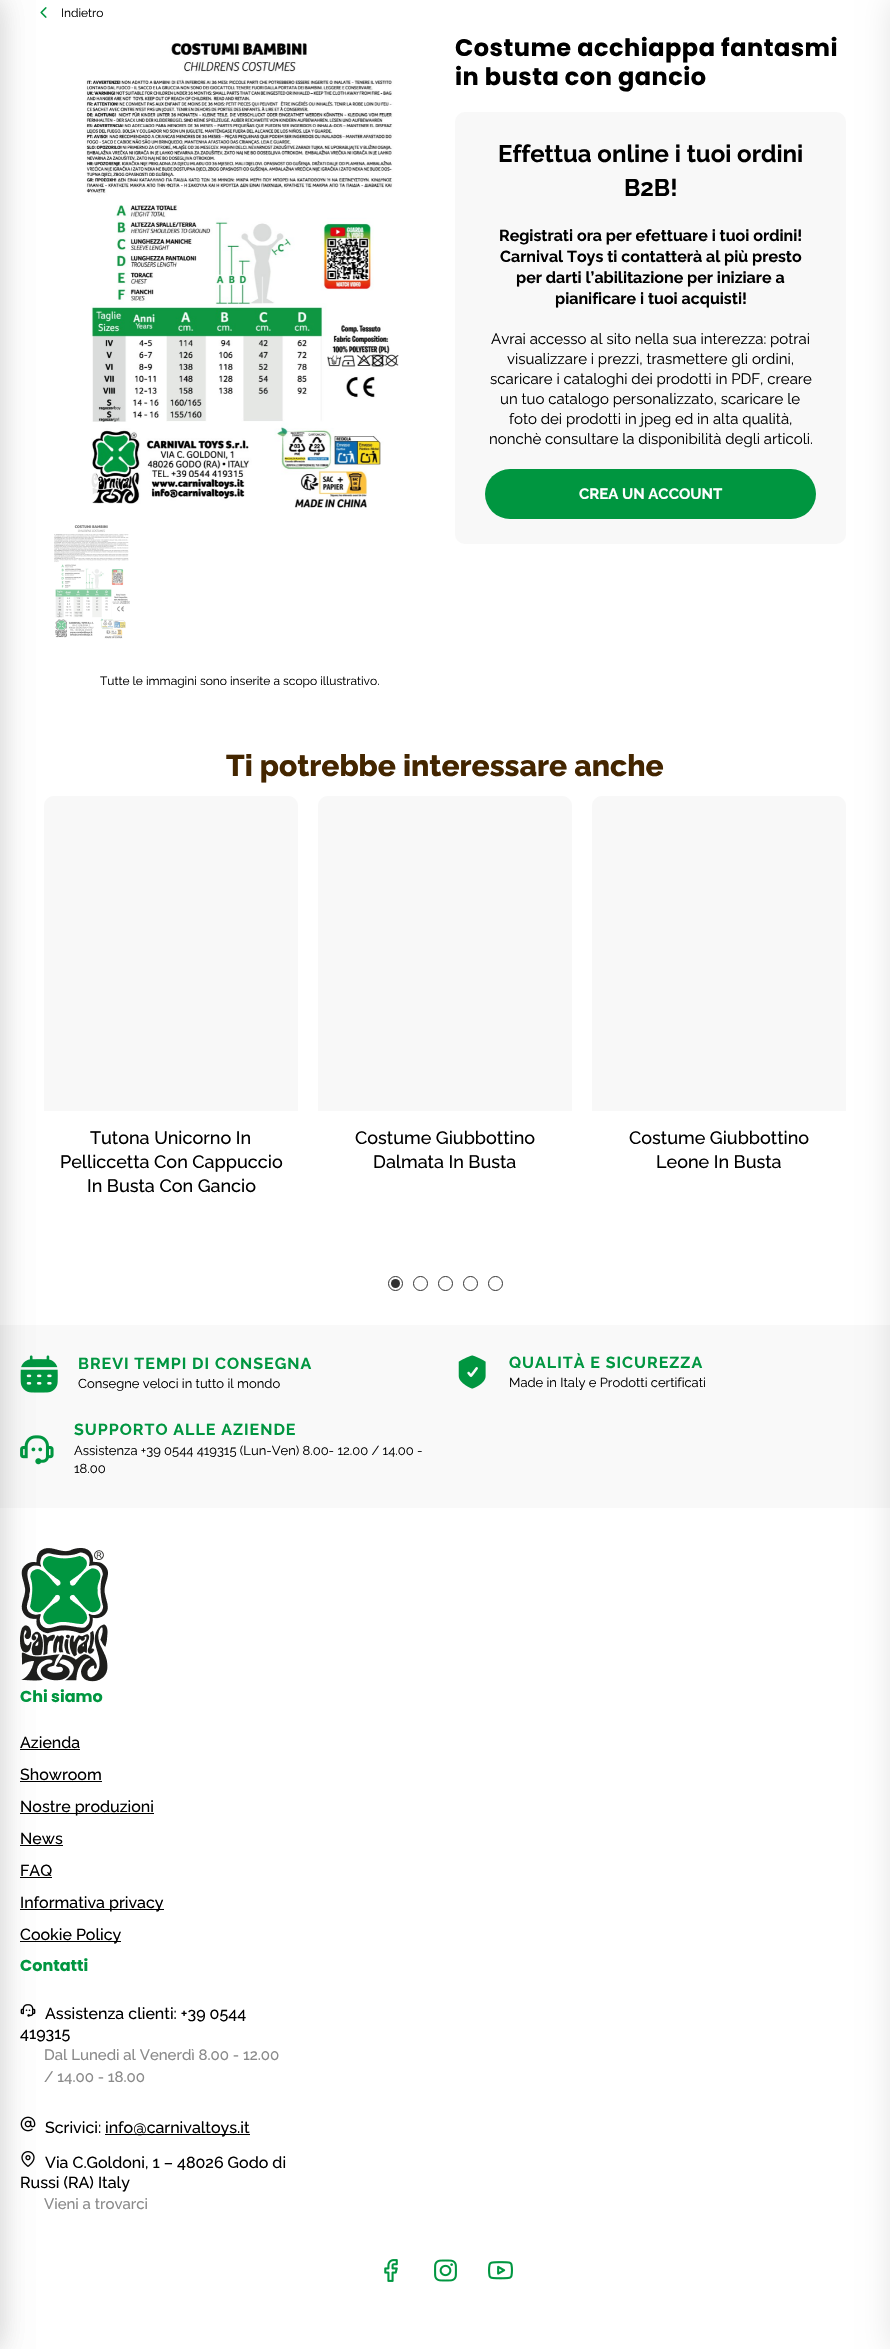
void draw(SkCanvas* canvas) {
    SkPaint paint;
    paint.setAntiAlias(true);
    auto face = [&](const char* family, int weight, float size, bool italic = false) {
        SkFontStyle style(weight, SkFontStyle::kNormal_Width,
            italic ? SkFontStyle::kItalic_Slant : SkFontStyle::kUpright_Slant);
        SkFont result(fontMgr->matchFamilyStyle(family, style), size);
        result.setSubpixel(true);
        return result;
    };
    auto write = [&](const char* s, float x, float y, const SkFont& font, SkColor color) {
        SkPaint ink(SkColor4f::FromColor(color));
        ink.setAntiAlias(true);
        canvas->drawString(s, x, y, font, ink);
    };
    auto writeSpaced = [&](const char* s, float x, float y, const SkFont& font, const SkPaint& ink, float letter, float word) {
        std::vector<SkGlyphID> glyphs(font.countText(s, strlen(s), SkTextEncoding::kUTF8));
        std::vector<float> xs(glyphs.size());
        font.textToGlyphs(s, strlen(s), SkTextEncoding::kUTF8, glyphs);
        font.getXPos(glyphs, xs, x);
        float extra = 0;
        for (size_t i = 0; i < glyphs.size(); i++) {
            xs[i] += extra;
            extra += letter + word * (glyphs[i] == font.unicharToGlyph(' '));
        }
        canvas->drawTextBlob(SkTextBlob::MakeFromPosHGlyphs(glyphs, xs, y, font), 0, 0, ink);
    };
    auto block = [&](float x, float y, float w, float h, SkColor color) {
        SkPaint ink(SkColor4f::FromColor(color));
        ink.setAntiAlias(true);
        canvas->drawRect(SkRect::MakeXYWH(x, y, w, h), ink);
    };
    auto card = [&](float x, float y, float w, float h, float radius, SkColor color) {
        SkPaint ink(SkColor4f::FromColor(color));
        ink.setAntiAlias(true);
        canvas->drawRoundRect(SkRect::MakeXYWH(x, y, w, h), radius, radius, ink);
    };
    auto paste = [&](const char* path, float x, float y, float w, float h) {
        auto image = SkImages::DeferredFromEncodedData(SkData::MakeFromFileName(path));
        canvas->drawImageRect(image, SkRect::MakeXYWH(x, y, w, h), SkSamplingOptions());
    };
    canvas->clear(SK_ColorWHITE);
    paste("pic1.png", 40, 7, 7, 11);
    paint.setColor(SkColorSetRGB(248, 248, 248));
    canvas->drawPath(SkPathBuilder().moveTo(54, 796).lineTo(288, 796).cubicTo(293.5f, 796, 298, 800.5f, 298, 806).lineTo(298, 1111).lineTo(44, 1111).lineTo(44, 806).cubicTo(44, 800.5f, 48.5f, 796, 54, 796).close().detach(), paint);
    block(0, 1325, 890, 183, SkColorSetRGB(249, 249, 249));
    paste("pic4.png", 20, 1355, 38, 38);
    paste("pic6.png", 20, 1435, 34, 30);
    paste("pic7.png", 20, 1548, 88, 134);
    block(20, 1749, 60, 1, SK_ColorBLACK);
    block(20, 1781, 82, 1, SK_ColorBLACK);
    block(20, 1813, 134, 1, SK_ColorBLACK);
    block(20, 1845, 43, 1, SK_ColorBLACK);
    block(20, 1877, 32, 1, SK_ColorBLACK);
    block(20, 1909, 144, 1, SK_ColorBLACK);
    block(20, 1941, 101, 1, SK_ColorBLACK);
    paste("pic8.png", 20, 2004, 16, 13);
    paste("pic9.png", 20, 2116, 16, 16);
    paste("pic10.png", 21, 2151, 14, 16);
    paint.setColor(SkColorSetARGB(26, 0, 0, 0));
    paint.setMaskFilter(SkMaskFilter::MakeBlur(kNormal_SkBlurStyle, 15));
    canvas->drawRect(SkRect::MakeXYWH(-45, 0, 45, 2349), paint);
    paint.setMaskFilter(nullptr);
    paint.setMaskFilter(SkMaskFilter::MakeBlur(kNormal_SkBlurStyle, 15));
    canvas->drawRect(SkRect::MakeXYWH(-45, 0, 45, 2349), paint);
    paint.setMaskFilter(nullptr);
    card(455, 112, 391, 432, 10, SkColorSetRGB(248, 248, 248));
    paint.setColor(SkColorSetRGB(248, 248, 248));
    canvas->drawPath(SkPathBuilder().moveTo(602, 796).lineTo(836, 796).cubicTo(841.5f, 796, 846, 800.5f, 846, 806).lineTo(846, 1111).lineTo(592, 1111).lineTo(592, 806).cubicTo(592, 800.5f, 596.5f, 796, 602, 796).close().detach(), paint);
    paint.setColor(SkColorSetARGB(26, 0, 0, 0));
    paint.setMaskFilter(SkMaskFilter::MakeBlur(kNormal_SkBlurStyle, 15));
    canvas->drawRect(SkRect::MakeXYWH(890, 0, 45, 2349), paint);
    paint.setMaskFilter(nullptr);
    auto kFont1 = face("Raleway", 400, 12);
    write("Indietro", 61, 17, kFont1, SK_ColorBLACK);
    auto kFont2 = face("Poppins", 700, 24);
    paint.setColor(SK_ColorBLACK);
    writeSpaced("Costume acchiappa fantasmi", 455, 56, kFont2, paint, 0.5f, 0);
    writeSpaced("in busta con gancio", 455, 85, kFont2, paint, 0.5f, 0);
    auto kFont3 = face("Raleway", 700, 24);
    write("Effettua online i tuoi ordini", 498, 162, kFont3, SK_ColorBLACK);
    write("B2B!", 624, 196, kFont3, SK_ColorBLACK);
    auto kFont4 = face("Raleway", 700, 16);
    write("Registrati ora per efettuare i tuoi ordini!", 499, 241, kFont4, SK_ColorBLACK);
    write("Carnival Toys ti contatterà al più presto", 500, 262, kFont4, SK_ColorBLACK);
    write("per darti l’abilitazione per iniziare a", 516, 283, kFont4, SK_ColorBLACK);
    write("pianificare i tuoi acquisti!", 555, 304, kFont4, SK_ColorBLACK);
    auto kFont5 = face("Raleway", 400, 15);
    write("Avrai accesso al sito nella sua interezza: potrai", 491, 344, kFont5, SK_ColorBLACK);
    write("visualizzare i prezzi, trasmettere gli ordini,", 507, 364, kFont5, SK_ColorBLACK);
    write("scaricare i cataloghi dei prodotti in PDF, creare", 490, 384, kFont5, SK_ColorBLACK);
    write("un tuo catalogo personalizzato, scaricare le", 500, 404, kFont5, SK_ColorBLACK);
    write("foto dei prodotti in jpeg ed in alta qualità,", 509, 424, kFont5, SK_ColorBLACK);
    write("nonchè consultare la disponibilità degli articoli.", 489, 444, kFont5, SK_ColorBLACK);
    card(485, 469, 331, 50, 25, SkColorSetRGB(0, 150, 64));
    auto kFont6 = face("Raleway", 700, 15);
    write("CREA UN ACCOUNT", 579, 499, kFont6, SK_ColorWHITE);
    paste("pic2.png", 85, 43, 314, 465);
    paint.setColor(SkColorSetARGB(230, 255, 255, 255));
    canvas->drawCircle(79, 484, 20, paint);
    paste("pic3.png", 54, 525, 76, 114);
    write("Tutte le immagini sono inserite a scopo illustrativo.", 100, 685, kFont1, SK_ColorBLACK);
    auto kFont7 = face("Raleway", 800, 30);
    write("Ti potrebbe interessare anche", 226, 776, kFont7, SkColorSetRGB(68, 38, 0));
    auto kFont8 = face("Raleway", 500, 18);
    write("Tutona Unicorno In", 90, 1144, kFont8, SK_ColorBLACK);
    write("Pelliccetta Con Cappuccio", 60, 1168, kFont8, SK_ColorBLACK);
    write("In Busta Con Gancio", 87, 1192, kFont8, SK_ColorBLACK);
    paint.setColor(SkColorSetRGB(248, 248, 248));
    canvas->drawPath(SkPathBuilder().moveTo(328, 796).lineTo(562, 796).cubicTo(567.5f, 796, 572, 800.5f, 572, 806).lineTo(572, 1111).lineTo(318, 1111).lineTo(318, 806).cubicTo(318, 800.5f, 322.5f, 796, 328, 796).close().detach(), paint);
    write("Costume Giubbottino", 355, 1144, kFont8, SK_ColorBLACK);
    write("Dalmata In Busta", 373, 1168, kFont8, SK_ColorBLACK);
    write("Costume Giubbottino", 629, 1144, kFont8, SK_ColorBLACK);
    write("Leone In Busta", 656, 1168, kFont8, SK_ColorBLACK);
    paint.setStyle(SkPaint::kStroke_Style);
    paint.setStrokeWidth(1);
    paint.setColor(SkColorSetRGB(51, 51, 51));
    canvas->drawCircle(395.5f, 1283.5f, 7, paint);
    paint.setStyle(SkPaint::kFill_Style);
    canvas->drawCircle(395.5f, 1283.5f, 4.5f, paint);
    paint.setStyle(SkPaint::kStroke_Style);
    canvas->drawCircle(420.5f, 1283.5f, 7, paint);
    canvas->drawCircle(445.5f, 1283.5f, 7, paint);
    canvas->drawCircle(470.5f, 1283.5f, 7, paint);
    canvas->drawCircle(495.5f, 1283.5f, 7, paint);
    paint.setStyle(SkPaint::kFill_Style);
    paint.setColor(SkColorSetRGB(0, 150, 64));
    writeSpaced("BREVI TEMPI DI CONSEGNA", 78, 1369, kFont4, paint, 1, 0);
    auto kFont9 = face("Raleway", 400, 13);
    write("Consegne veloci in tutto il mondo", 78, 1388, kFont9, SK_ColorBLACK);
    paste("pic5.png", 458, 1355, 28, 34);
    writeSpaced("QUALITÀ E SICUREZZA", 509, 1368, kFont4, paint, 1, 0);
    write("Made in Italy e Prodotti certificati", 509, 1387, kFont9, SK_ColorBLACK);
    writeSpaced("SUPPORTO ALLE AZIENDE", 74, 1435, kFont4, paint, 1, 0);
    write("Assistenza +39 0544 419315 (Lun-Ven) 8.00- 12.00 / 14.00 -", 74, 1455, kFont9, SK_ColorBLACK);
    write("18.00", 74, 1473, kFont9, SK_ColorBLACK);
    auto kFont10 = face("Poppins", 700, 16);
    write("Chi siamo", 20, 1702, kFont10, SkColorSetRGB(0, 150, 64));
    auto kFont11 = face("Raleway", 500, 16);
    write("Azienda", 20, 1748, kFont11, SK_ColorBLACK);
    write("Showroom", 20, 1780, kFont11, SK_ColorBLACK);
    write("Nostre produzioni", 20, 1812, kFont11, SK_ColorBLACK);
    write("News", 20, 1844, kFont11, SK_ColorBLACK);
    write("FAQ", 20, 1876, kFont11, SK_ColorBLACK);
    write("Informativa privacy", 20, 1908, kFont11, SK_ColorBLACK);
    write("Cookie Policy", 20, 1940, kFont11, SK_ColorBLACK);
    write("Contatti", 20, 1971, kFont10, SkColorSetRGB(0, 150, 64));
    write("Assistenza clienti: +39 0544", 45, 2019, kFont11, SK_ColorBLACK);
    write("419315", 20, 2039, kFont11, SK_ColorBLACK);
    auto kFont12 = face("Raleway", 500, 15);
    write("Dal Lunedi al Venerdì 8.00 - 12.00", 44, 2060, kFont12, SkColorSetRGB(138, 138, 138));
    write("/ 14.00 - 18.00", 44, 2082, kFont12, SkColorSetRGB(138, 138, 138));
    write("Scrivici:", 45, 2133, kFont11, SK_ColorBLACK);
    block(105, 2134, 145, 1, SK_ColorBLACK);
    write("info@carnivaltoys.it", 105, 2133, kFont11, SK_ColorBLACK);
    write("Via C.Goldoni, 1 – 48026 Godo di", 45, 2168, kFont11, SK_ColorBLACK);
    write("Russi (RA) Italy", 20, 2188, kFont11, SK_ColorBLACK);
    write("Vieni a trovarci", 44, 2209, kFont12, SkColorSetRGB(138, 138, 138));
    paste("pic11.png", 384, 2259, 14, 23);
    paste("pic12.png", 434, 2259, 23, 23);
    paste("pic13.png", 488, 2261, 25, 19);
}
